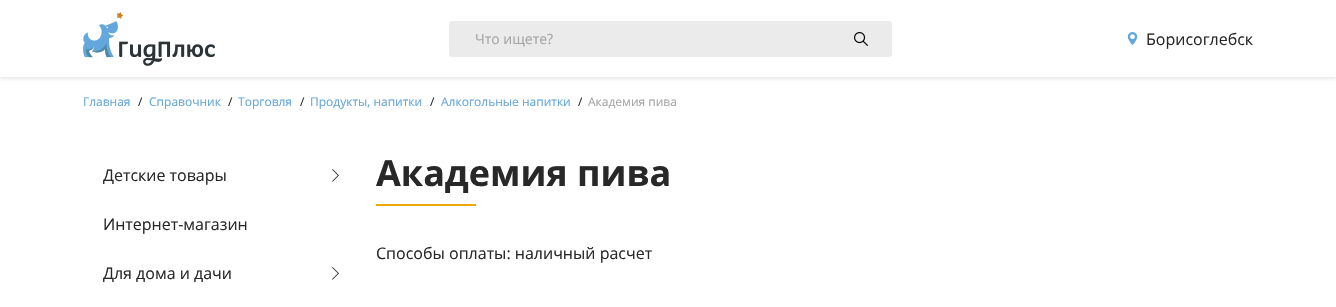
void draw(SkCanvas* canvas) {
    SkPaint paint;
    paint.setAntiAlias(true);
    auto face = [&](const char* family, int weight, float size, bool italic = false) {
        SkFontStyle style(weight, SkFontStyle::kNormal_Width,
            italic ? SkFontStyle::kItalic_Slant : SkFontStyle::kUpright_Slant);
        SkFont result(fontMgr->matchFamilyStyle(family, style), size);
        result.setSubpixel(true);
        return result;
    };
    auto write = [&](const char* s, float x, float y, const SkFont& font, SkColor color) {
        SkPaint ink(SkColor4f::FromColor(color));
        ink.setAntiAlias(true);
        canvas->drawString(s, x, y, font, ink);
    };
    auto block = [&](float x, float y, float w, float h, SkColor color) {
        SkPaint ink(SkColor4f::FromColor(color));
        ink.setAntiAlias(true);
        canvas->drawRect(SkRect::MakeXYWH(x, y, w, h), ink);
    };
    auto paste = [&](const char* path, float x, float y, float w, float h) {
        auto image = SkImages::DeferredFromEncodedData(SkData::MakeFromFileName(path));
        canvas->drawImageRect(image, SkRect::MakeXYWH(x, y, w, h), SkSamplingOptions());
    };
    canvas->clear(SK_ColorWHITE);
    canvas->save();
    canvas->clipRect(SkRect::MakeXYWH(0, 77, 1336, 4));
    paint.setColor(SkColorSetARGB(64, 160, 160, 160));
    paint.setMaskFilter(SkMaskFilter::MakeBlur(kNormal_SkBlurStyle, 1.5f));
    canvas->drawRect(SkRect::MakeXYWH(0, 2, 1336, 77), paint);
    paint.setMaskFilter(nullptr);
    canvas->restore();
    paste("pic1.png", 83, 12, 132, 54);
    paint.setColor(SkColorSetRGB(235, 235, 235));
    canvas->drawRoundRect(SkRect::MakeXYWH(448.5f, 20.5f, 444, 37), 3.5f, 3.5f, paint);
    paint.setStyle(SkPaint::kStroke_Style);
    paint.setStrokeWidth(1);
    paint.setColor(SK_ColorWHITE);
    canvas->drawRoundRect(SkRect::MakeXYWH(448.5f, 20.5f, 444, 37), 3.5f, 3.5f, paint);
    auto kFont1 = face("Open Sans", 400, 14);
    write("Что ищете?", 475, 44, kFont1, SkColorSetRGB(165, 165, 165));
    paste("pic2.png", 854, 32, 14, 14);
    paste("pic3.png", 1127, 32, 11, 13);
    auto kFont2 = face("Open Sans", 400, 16);
    write("Борисоглебск", 1146, 45, kFont2, SkColorSetRGB(40, 40, 40));
    auto kFont3 = face("Open Sans", 400, 12);
    write("Главная", 83, 106, kFont3, SkColorSetRGB(100, 167, 221));
    write("/", 138, 106, kFont3, SkColorSetRGB(40, 40, 40));
    write("Справочник", 149, 106, kFont3, SkColorSetRGB(100, 167, 221));
    write("/", 228, 106, kFont3, SkColorSetRGB(40, 40, 40));
    write("Торговля", 238, 106, kFont3, SkColorSetRGB(100, 167, 221));
    write("/", 300, 106, kFont3, SkColorSetRGB(40, 40, 40));
    write("Продукты, напитки", 310, 106, kFont3, SkColorSetRGB(100, 167, 221));
    write("/", 430, 106, kFont3, SkColorSetRGB(40, 40, 40));
    write("Алкогольные напитки", 441, 106, kFont3, SkColorSetRGB(100, 167, 221));
    write("/", 578, 106, kFont3, SkColorSetRGB(40, 40, 40));
    write("Академия пива", 588, 106, kFont3, SkColorSetRGB(165, 165, 165));
    paste("pic4.png", 332, 169, 7, 13);
    write("Детские товары", 103, 181, kFont2, SkColorSetRGB(40, 40, 40));
    write("Интернет-магазин", 103, 230, kFont2, SkColorSetRGB(40, 40, 40));
    paste("pic4.png", 332, 267, 7, 13);
    write("Для дома и дачи", 103, 279, kFont2, SkColorSetRGB(40, 40, 40));
    auto kFont4 = face("Open Sans", 700, 36);
    write("Академия пива", 376, 186, kFont4, SkColorSetRGB(40, 40, 40));
    block(376, 204, 100, 2, SkColorSetRGB(235, 169, 1));
    write("Способы оплаты: наличный расчет", 376, 259, kFont2, SkColorSetRGB(40, 40, 40));
}
